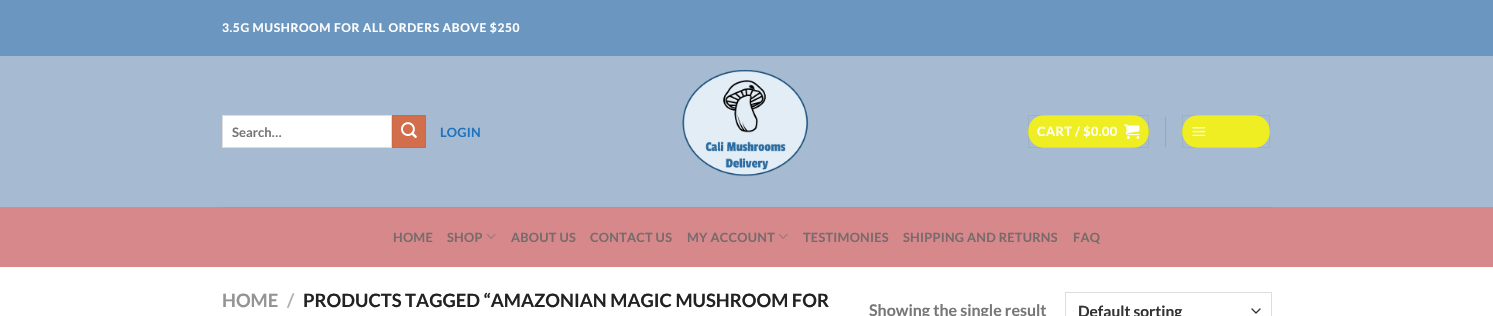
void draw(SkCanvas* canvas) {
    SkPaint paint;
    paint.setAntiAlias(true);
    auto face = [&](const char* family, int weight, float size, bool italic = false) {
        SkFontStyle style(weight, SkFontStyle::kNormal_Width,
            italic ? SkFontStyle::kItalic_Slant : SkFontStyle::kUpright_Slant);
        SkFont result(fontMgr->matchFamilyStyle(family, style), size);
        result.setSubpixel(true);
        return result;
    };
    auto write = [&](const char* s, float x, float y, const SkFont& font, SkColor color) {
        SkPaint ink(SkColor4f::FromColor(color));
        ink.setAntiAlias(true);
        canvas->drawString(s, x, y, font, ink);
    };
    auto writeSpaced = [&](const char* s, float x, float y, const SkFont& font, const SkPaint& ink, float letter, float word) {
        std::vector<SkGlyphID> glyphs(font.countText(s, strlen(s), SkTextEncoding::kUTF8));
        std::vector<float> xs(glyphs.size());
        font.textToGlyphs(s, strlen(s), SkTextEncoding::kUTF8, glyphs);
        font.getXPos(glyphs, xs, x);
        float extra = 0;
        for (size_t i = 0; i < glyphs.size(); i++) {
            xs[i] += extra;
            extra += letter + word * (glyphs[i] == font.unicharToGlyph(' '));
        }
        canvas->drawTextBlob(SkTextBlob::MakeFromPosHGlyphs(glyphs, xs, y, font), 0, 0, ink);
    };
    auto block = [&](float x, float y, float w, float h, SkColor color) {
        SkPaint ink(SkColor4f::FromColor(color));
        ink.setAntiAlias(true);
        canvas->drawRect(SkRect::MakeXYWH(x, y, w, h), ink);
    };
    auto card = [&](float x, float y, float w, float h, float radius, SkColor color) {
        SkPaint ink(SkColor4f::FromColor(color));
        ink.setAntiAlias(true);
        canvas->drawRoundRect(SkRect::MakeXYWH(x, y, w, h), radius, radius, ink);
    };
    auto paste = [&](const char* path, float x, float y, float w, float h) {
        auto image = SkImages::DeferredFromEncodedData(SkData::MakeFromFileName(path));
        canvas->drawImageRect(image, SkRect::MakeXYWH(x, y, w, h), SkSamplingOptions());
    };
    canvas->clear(SK_ColorWHITE);
    block(0, 0, 1493, 56, SkColorSetRGB(107, 150, 191));
    auto kFont1 = face("Lato", 700, 12);
    paint.setColor(SK_ColorWHITE);
    writeSpaced("3.5G MUSHROOM FOR ALL ORDERS ABOVE $250", 222, 32, kFont1, paint, 0.6f, 0);
    block(0, 56, 1493, 151, SkColorSetRGB(166, 187, 209));
    canvas->drawRect(SkRect::MakeXYWH(222.5f, 115.5f, 169, 32), paint);
    paint.setStyle(SkPaint::kStroke_Style);
    paint.setStrokeWidth(1);
    paint.setColor(SkColorSetRGB(221, 221, 221));
    canvas->drawRect(SkRect::MakeXYWH(222.5f, 115.5f, 169, 32), paint);
    auto kFont2 = face("Lato", 700, 13);
    write("Search…", 232, 137, kFont2, SkColorSetRGB(119, 119, 119));
    paint.setStyle(SkPaint::kFill_Style);
    paint.setColor(SkColorSetRGB(210, 110, 75));
    canvas->drawRect(SkRect::MakeXYWH(392.5f, 115.5f, 33, 32), paint);
    paint.setStyle(SkPaint::kStroke_Style);
    paint.setColor(SkColorSetRGB(200, 105, 71));
    canvas->drawRect(SkRect::MakeXYWH(392.5f, 115.5f, 33, 32), paint);
    paste("pic1.png", 401, 122, 16, 16);
    auto kFont3 = face("Lato", 700, 12.75f);
    paint.setStyle(SkPaint::kFill_Style);
    paint.setColor(SkColorSetRGB(30, 115, 190));
    writeSpaced("LOGIN", 440, 137, kFont3, paint, 0.25f, 0);
    paste("pic2.png", 682, 69, 127, 108);
    card(1028, 115, 121, 33, 16.5f, SkColorSetRGB(238, 238, 34));
    paint.setStyle(SkPaint::kStroke_Style);
    paint.setColor(SkColorSetARGB(13, 0, 0, 0));
    canvas->drawRect(SkRect::MakeXYWH(1028.5f, 115.5f, 120, 32), paint);
    paint.setStyle(SkPaint::kFill_Style);
    paint.setColor(SK_ColorWHITE);
    writeSpaced("CART / $0.00", 1037, 136, kFont3, paint, 0.4f, 0);
    paste("pic3.png", 1124, 124, 16, 15);
    block(1165, 117, 1, 30, SkColorSetRGB(149, 168, 188));
    card(1182, 115, 88, 33, 16.5f, SkColorSetRGB(238, 238, 34));
    paint.setStyle(SkPaint::kStroke_Style);
    paint.setColor(SkColorSetARGB(13, 0, 0, 0));
    canvas->drawRect(SkRect::MakeXYWH(1182.5f, 115.5f, 87, 32), paint);
    paste("pic4.png", 1192, 127, 13, 10);
    block(0, 207, 1493, 60, SkColorSetRGB(215, 136, 139));
    block(222, 207, 1050, 1, SkColorSetRGB(205, 134, 137));
    paint.setStyle(SkPaint::kFill_Style);
    paint.setColor(SkColorSetRGB(119, 107, 108));
    writeSpaced("HOME", 393, 242, kFont3, paint, 0.25f, 0);
    writeSpaced("SHOP", 447, 242, kFont3, paint, 0.25f, 0);
    paste("pic5.png", 486, 234, 10, 5);
    writeSpaced("ABOUT US", 511, 242, kFont3, paint, 0.25f, 0);
    writeSpaced("CONTACT US", 590, 242, kFont3, paint, 0.25f, 0);
    writeSpaced("MY ACCOUNT", 687, 242, kFont3, paint, 0.25f, 0);
    paste("pic5.png", 778, 234, 10, 5);
    writeSpaced("TESTIMONIES", 803, 242, kFont3, paint, 0.25f, 0);
    writeSpaced("SHIPPING AND RETURNS", 903, 242, kFont3, paint, 0.25f, 0);
    writeSpaced("FAQ", 1073, 242, kFont3, paint, 0.25f, 0);
    auto kFont4 = face("Lato", 700, 18.4f);
    write("HOME", 222, 307, kFont4, SkColorSetRGB(148, 148, 148));
    write("/", 287, 307, kFont4, SkColorSetRGB(178, 178, 178));
    write("PRODUCTS TAGGED “AMAZONIAN MAGIC MUSHROOM FOR", 303, 307, kFont4, SkColorSetRGB(34, 34, 34));
    auto kFont5 = face("Lato", 700, 16);
    write("Showing the single result", 869, 316, kFont5, SkColorSetRGB(119, 119, 119));
    paint.setStyle(SkPaint::kStroke_Style);
    paint.setStrokeWidth(1.3f);
    paint.setStrokeCap(SkPaint::kRound_Cap);
    paint.setStrokeJoin(SkPaint::kRound_Join);
    paint.setColor(SkColorSetRGB(51, 51, 51));
    canvas->drawPath(SkPathBuilder().moveTo(1252, 309).lineTo(1256, 313).lineTo(1260, 309).detach(), paint);
    paint.setStrokeWidth(1);
    paint.setStrokeCap(SkPaint::kButt_Cap);
    paint.setStrokeJoin(SkPaint::kMiter_Join);
    paint.setColor(SkColorSetRGB(221, 221, 221));
    canvas->drawRect(SkRect::MakeXYWH(1065.5f, 292.5f, 206, 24), paint);
    auto kFont6 = face("Lato", 700, 15.5f);
    write("Default sorting", 1078, 317, kFont6, SkColorSetRGB(51, 51, 51));
}
